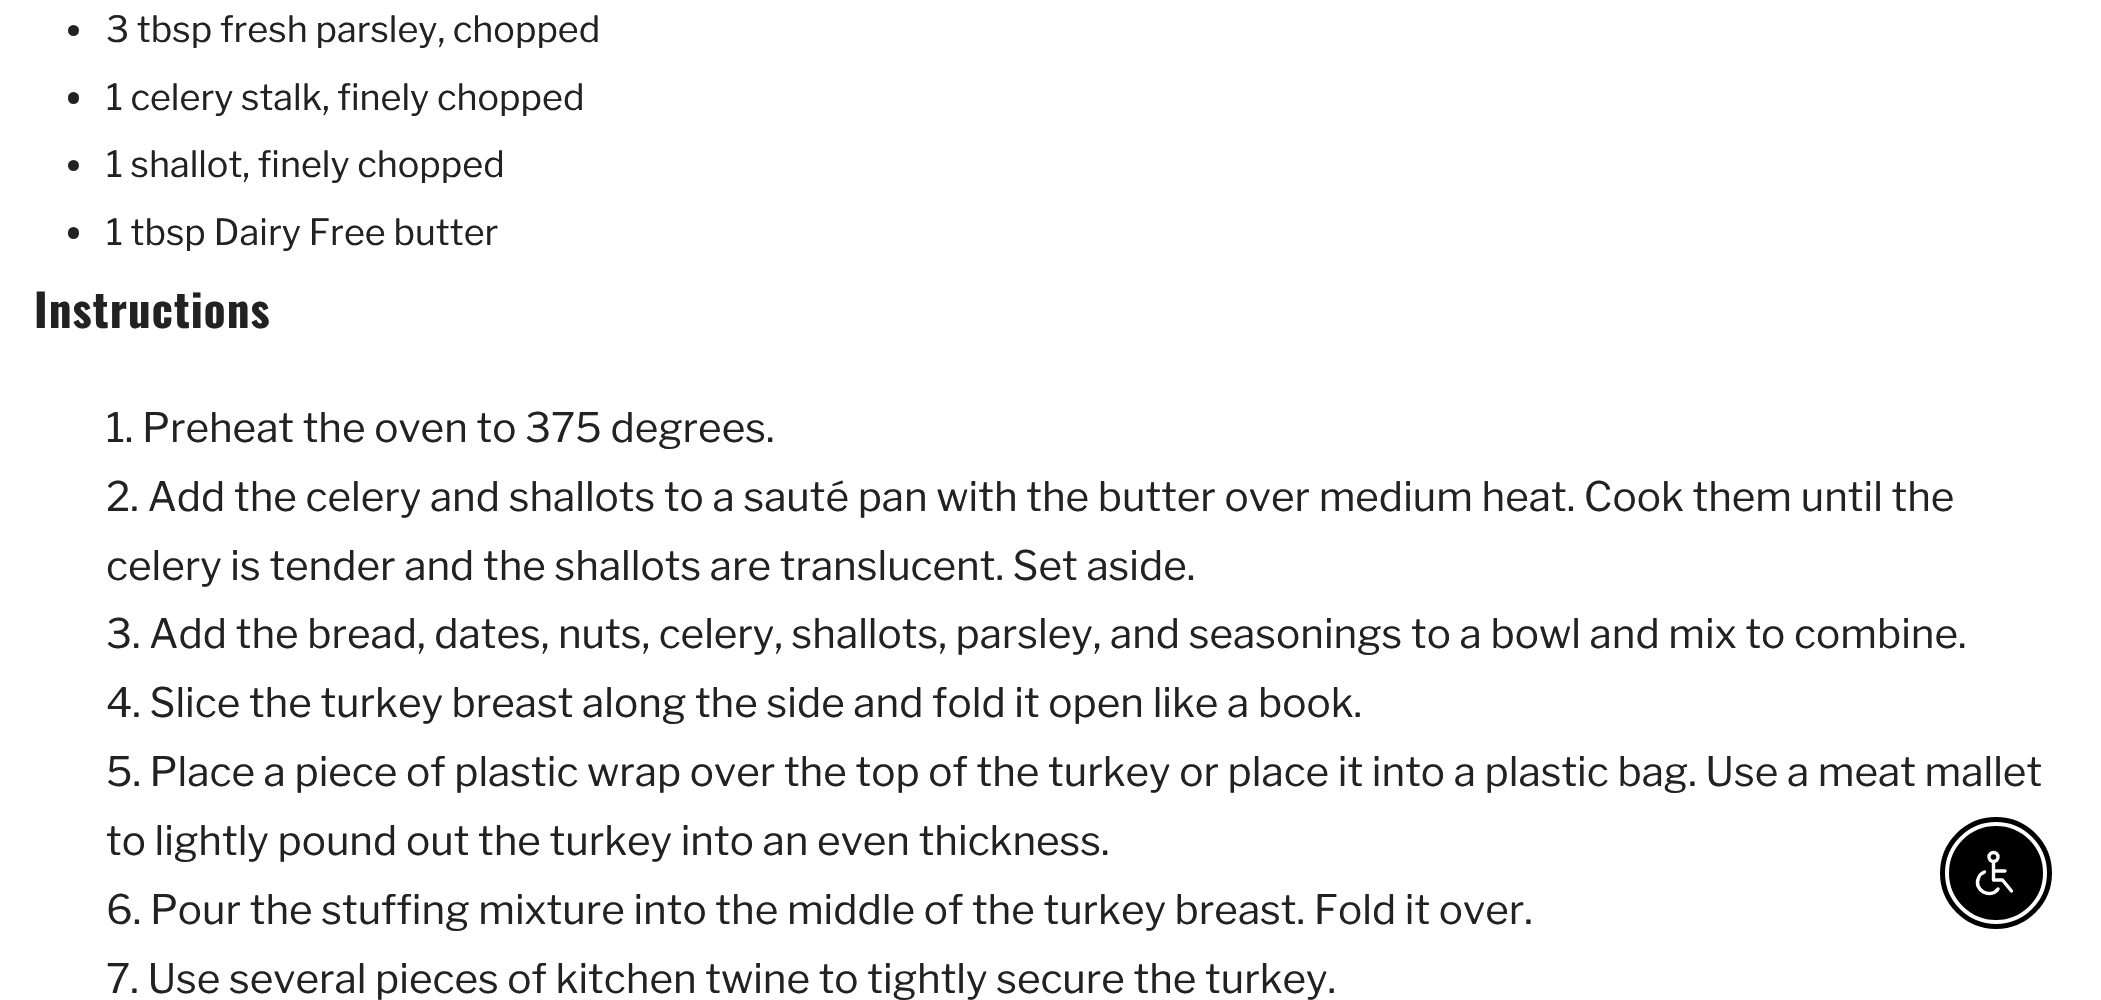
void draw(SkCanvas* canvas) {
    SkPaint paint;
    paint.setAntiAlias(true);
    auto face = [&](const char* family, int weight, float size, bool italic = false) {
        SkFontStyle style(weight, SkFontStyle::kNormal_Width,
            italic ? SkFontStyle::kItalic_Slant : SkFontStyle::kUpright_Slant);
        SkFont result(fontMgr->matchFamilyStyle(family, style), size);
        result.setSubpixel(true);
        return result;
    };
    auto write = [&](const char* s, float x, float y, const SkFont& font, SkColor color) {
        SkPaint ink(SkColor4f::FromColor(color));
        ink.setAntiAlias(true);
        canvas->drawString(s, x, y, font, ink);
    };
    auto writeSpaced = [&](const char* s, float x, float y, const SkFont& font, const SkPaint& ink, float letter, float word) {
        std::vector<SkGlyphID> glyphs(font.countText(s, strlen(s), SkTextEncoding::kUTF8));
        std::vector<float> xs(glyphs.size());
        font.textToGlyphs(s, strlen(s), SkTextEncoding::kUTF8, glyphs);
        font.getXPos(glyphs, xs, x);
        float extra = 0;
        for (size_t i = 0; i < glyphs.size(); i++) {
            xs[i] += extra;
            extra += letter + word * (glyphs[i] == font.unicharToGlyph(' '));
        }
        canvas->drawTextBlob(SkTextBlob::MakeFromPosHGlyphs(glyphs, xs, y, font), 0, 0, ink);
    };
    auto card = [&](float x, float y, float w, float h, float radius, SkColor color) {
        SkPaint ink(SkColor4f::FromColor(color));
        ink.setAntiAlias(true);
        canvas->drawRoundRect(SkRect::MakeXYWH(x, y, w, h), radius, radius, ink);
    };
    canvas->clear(SK_ColorWHITE);
    paint.setColor(SkColorSetRGB(34, 34, 34));
    canvas->drawCircle(73.5f, 30.5f, 5.5f, paint);
    auto kFont1 = face("Libre Franklin", 400, 36);
    write("3 tbsp fresh parsley, chopped", 106, 42, kFont1, SkColorSetRGB(34, 34, 34));
    card(68, 92, 11, 12, 5.5f, SkColorSetRGB(34, 34, 34));
    write("1 celery stalk, finely chopped", 106, 110, kFont1, SkColorSetRGB(34, 34, 34));
    canvas->drawCircle(73.5f, 165.5f, 5.5f, paint);
    write("1 shallot, finely chopped", 106, 177, kFont1, SkColorSetRGB(34, 34, 34));
    card(68, 227, 11, 12, 5.5f, SkColorSetRGB(34, 34, 34));
    write("1 tbsp Dairy Free butter", 106, 245, kFont1, SkColorSetRGB(34, 34, 34));
    auto kFont2 = face("Oswald", 700, 45);
    writeSpaced("Instructions", 34, 328, kFont2, paint, 1.1f, 0);
    auto kFont3 = face("Libre Franklin", 400, 40.5f);
    write("1. Preheat the oven to 375 degrees.", 106, 442, kFont3, SkColorSetRGB(34, 34, 34));
    write("2. Add the celery and shallots to a sauté pan with the butter over medium heat. Cook them until the", 106, 511, kFont3, SkColorSetRGB(34, 34, 34));
    write("celery is tender and the shallots are translucent. Set aside.", 106, 580, kFont3, SkColorSetRGB(34, 34, 34));
    write("3. Add the bread, dates, nuts, celery, shallots, parsley, and seasonings to a bowl and mix to combine.", 106, 648, kFont3, SkColorSetRGB(34, 34, 34));
    write("4. Slice the turkey breast along the side and fold it open like a book.", 106, 717, kFont3, SkColorSetRGB(34, 34, 34));
    write("5. Place a piece of plastic wrap over the top of the turkey or place it into a plastic bag. Use a meat mallet", 106, 786, kFont3, SkColorSetRGB(34, 34, 34));
    write("to lightly pound out the turkey into an even thickness.", 106, 855, kFont3, SkColorSetRGB(34, 34, 34));
    write("6. Pour the stuffing mixture into the middle of the turkey breast. Fold it over.", 106, 924, kFont3, SkColorSetRGB(34, 34, 34));
    write("7. Use several pieces of kitchen twine to tightly secure the turkey.", 106, 993, kFont3, SkColorSetRGB(34, 34, 34));
    paint.setStyle(SkPaint::kStroke_Style);
    paint.setStrokeWidth(5);
    paint.setColor(SK_ColorBLACK);
    canvas->drawCircle(1996, 873, 53.5f, paint);
    paint.setStyle(SkPaint::kFill_Style);
    canvas->drawCircle(1996, 873, 46, paint);
    paint.setStyle(SkPaint::kStroke_Style);
    paint.setStrokeWidth(2);
    canvas->drawCircle(1996, 873, 46, paint);
    paint.setStrokeWidth(3.4f);
    paint.setColor(SK_ColorWHITE);
    canvas->drawCircle(1993.5f, 857, 4.5f, paint);
    paint.setStrokeCap(SkPaint::kRound_Cap);
    paint.setStrokeJoin(SkPaint::kRound_Join);
    canvas->drawPath(SkPathBuilder().moveTo(1993.5f, 862).lineTo(1993.5f, 880).lineTo(2002.5f, 880).lineTo(2011.5f, 891).moveTo(1993.5f, 871).lineTo(2005, 871).moveTo(1984.5f, 872).cubicTo(1982, 873, 1979.5f, 875, 1978.5f, 878).cubicTo(1973, 890, 1990.5f, 899.5f, 1998, 889).detach(), paint);
}
